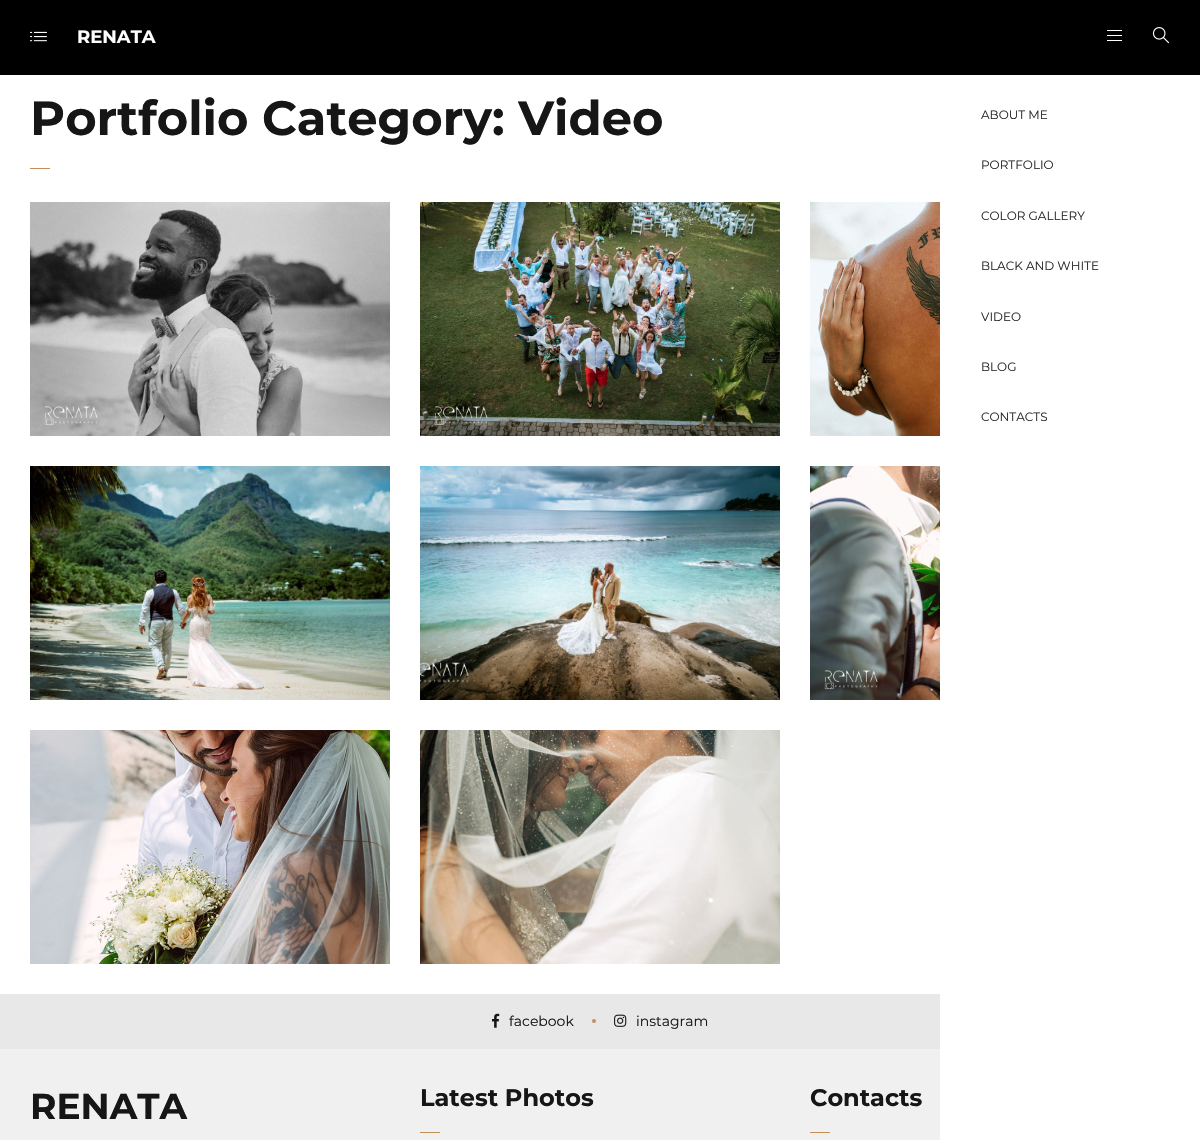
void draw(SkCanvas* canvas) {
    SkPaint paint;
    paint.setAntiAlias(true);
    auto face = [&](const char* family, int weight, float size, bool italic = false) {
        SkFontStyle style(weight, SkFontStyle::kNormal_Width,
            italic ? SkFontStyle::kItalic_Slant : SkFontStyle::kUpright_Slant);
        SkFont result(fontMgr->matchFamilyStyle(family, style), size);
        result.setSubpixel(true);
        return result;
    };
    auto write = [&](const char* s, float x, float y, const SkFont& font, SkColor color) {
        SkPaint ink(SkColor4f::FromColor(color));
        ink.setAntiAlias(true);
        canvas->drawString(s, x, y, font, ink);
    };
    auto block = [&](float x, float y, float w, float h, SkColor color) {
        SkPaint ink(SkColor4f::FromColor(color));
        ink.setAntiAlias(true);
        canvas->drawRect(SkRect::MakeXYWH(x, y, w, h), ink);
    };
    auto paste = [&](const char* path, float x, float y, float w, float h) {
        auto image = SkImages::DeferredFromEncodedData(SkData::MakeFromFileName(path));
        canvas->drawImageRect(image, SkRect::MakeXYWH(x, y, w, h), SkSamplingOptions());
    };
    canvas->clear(SK_ColorWHITE);
    block(0, 0, 1200, 75, SK_ColorBLACK);
    paste("pic1.png", 30, 31, 17, 11);
    auto kFont1 = face("Montserrat", 700, 18);
    write("RENATA", 77, 43, kFont1, SK_ColorWHITE);
    block(1107, 30, 15, 1, SK_ColorWHITE);
    block(1107, 35, 15, 1, SK_ColorWHITE);
    block(1107, 40, 15, 1, SK_ColorWHITE);
    paste("pic2.png", 1152, 27, 17, 17);
    auto kFont2 = face("Montserrat", 400, 12);
    write("ABOUT ME", 981, 119, kFont2, SkColorSetRGB(41, 41, 41));
    write("PORTFOLIO", 981, 169, kFont2, SkColorSetRGB(41, 41, 41));
    write("COLOR GALLERY", 981, 220, kFont2, SkColorSetRGB(41, 41, 41));
    write("BLACK AND WHITE", 981, 270, kFont2, SkColorSetRGB(41, 41, 41));
    write("VIDEO", 981, 321, kFont2, SkColorSetRGB(41, 41, 41));
    write("BLOG", 981, 371, kFont2, SkColorSetRGB(41, 41, 41));
    write("CONTACTS", 981, 421, kFont2, SkColorSetRGB(41, 41, 41));
    auto kFont3 = face("Montserrat", 700, 48);
    write("Portfolio Category: Video", 30, 135, kFont3, SkColorSetRGB(22, 22, 22));
    block(30, 168, 20, 1, SkColorSetRGB(196, 143, 86));
    paste("pic3.png", 30, 202, 360, 234);
    paste("pic4.png", 420, 202, 360, 234);
    paste("pic5.png", 810, 202, 130, 234);
    paste("pic6.png", 30, 466, 360, 234);
    paste("pic7.png", 420, 466, 360, 234);
    paste("pic8.png", 810, 466, 130, 234);
    paste("pic9.png", 30, 730, 360, 234);
    paste("pic10.png", 420, 730, 360, 234);
    block(0, 994, 940, 55, SkColorSetRGB(232, 232, 232));
    paste("pic11.png", 492, 1013, 8, 15);
    auto kFont4 = face("Montserrat", 400, 14);
    write("facebook", 509, 1026, kFont4, SkColorSetRGB(22, 22, 22));
    paint.setColor(SkColorSetRGB(196, 143, 86));
    canvas->drawCircle(594, 1021, 2, paint);
    paste("pic12.png", 614, 1014, 13, 13);
    write("instagram", 636, 1026, kFont4, SkColorSetRGB(22, 22, 22));
    block(0, 1049, 940, 91, SkColorSetRGB(240, 240, 240));
    auto kFont5 = face("Montserrat", 700, 36);
    write("RENATA", 30, 1119, kFont5, SkColorSetRGB(22, 22, 22));
    auto kFont6 = face("Montserrat", 700, 24);
    write("Latest Photos", 420, 1106, kFont6, SkColorSetRGB(22, 22, 22));
    block(420, 1132, 20, 1, SkColorSetRGB(196, 143, 86));
    write("Contacts", 810, 1106, kFont6, SkColorSetRGB(22, 22, 22));
    block(810, 1132, 20, 1, SkColorSetRGB(196, 143, 86));
}
